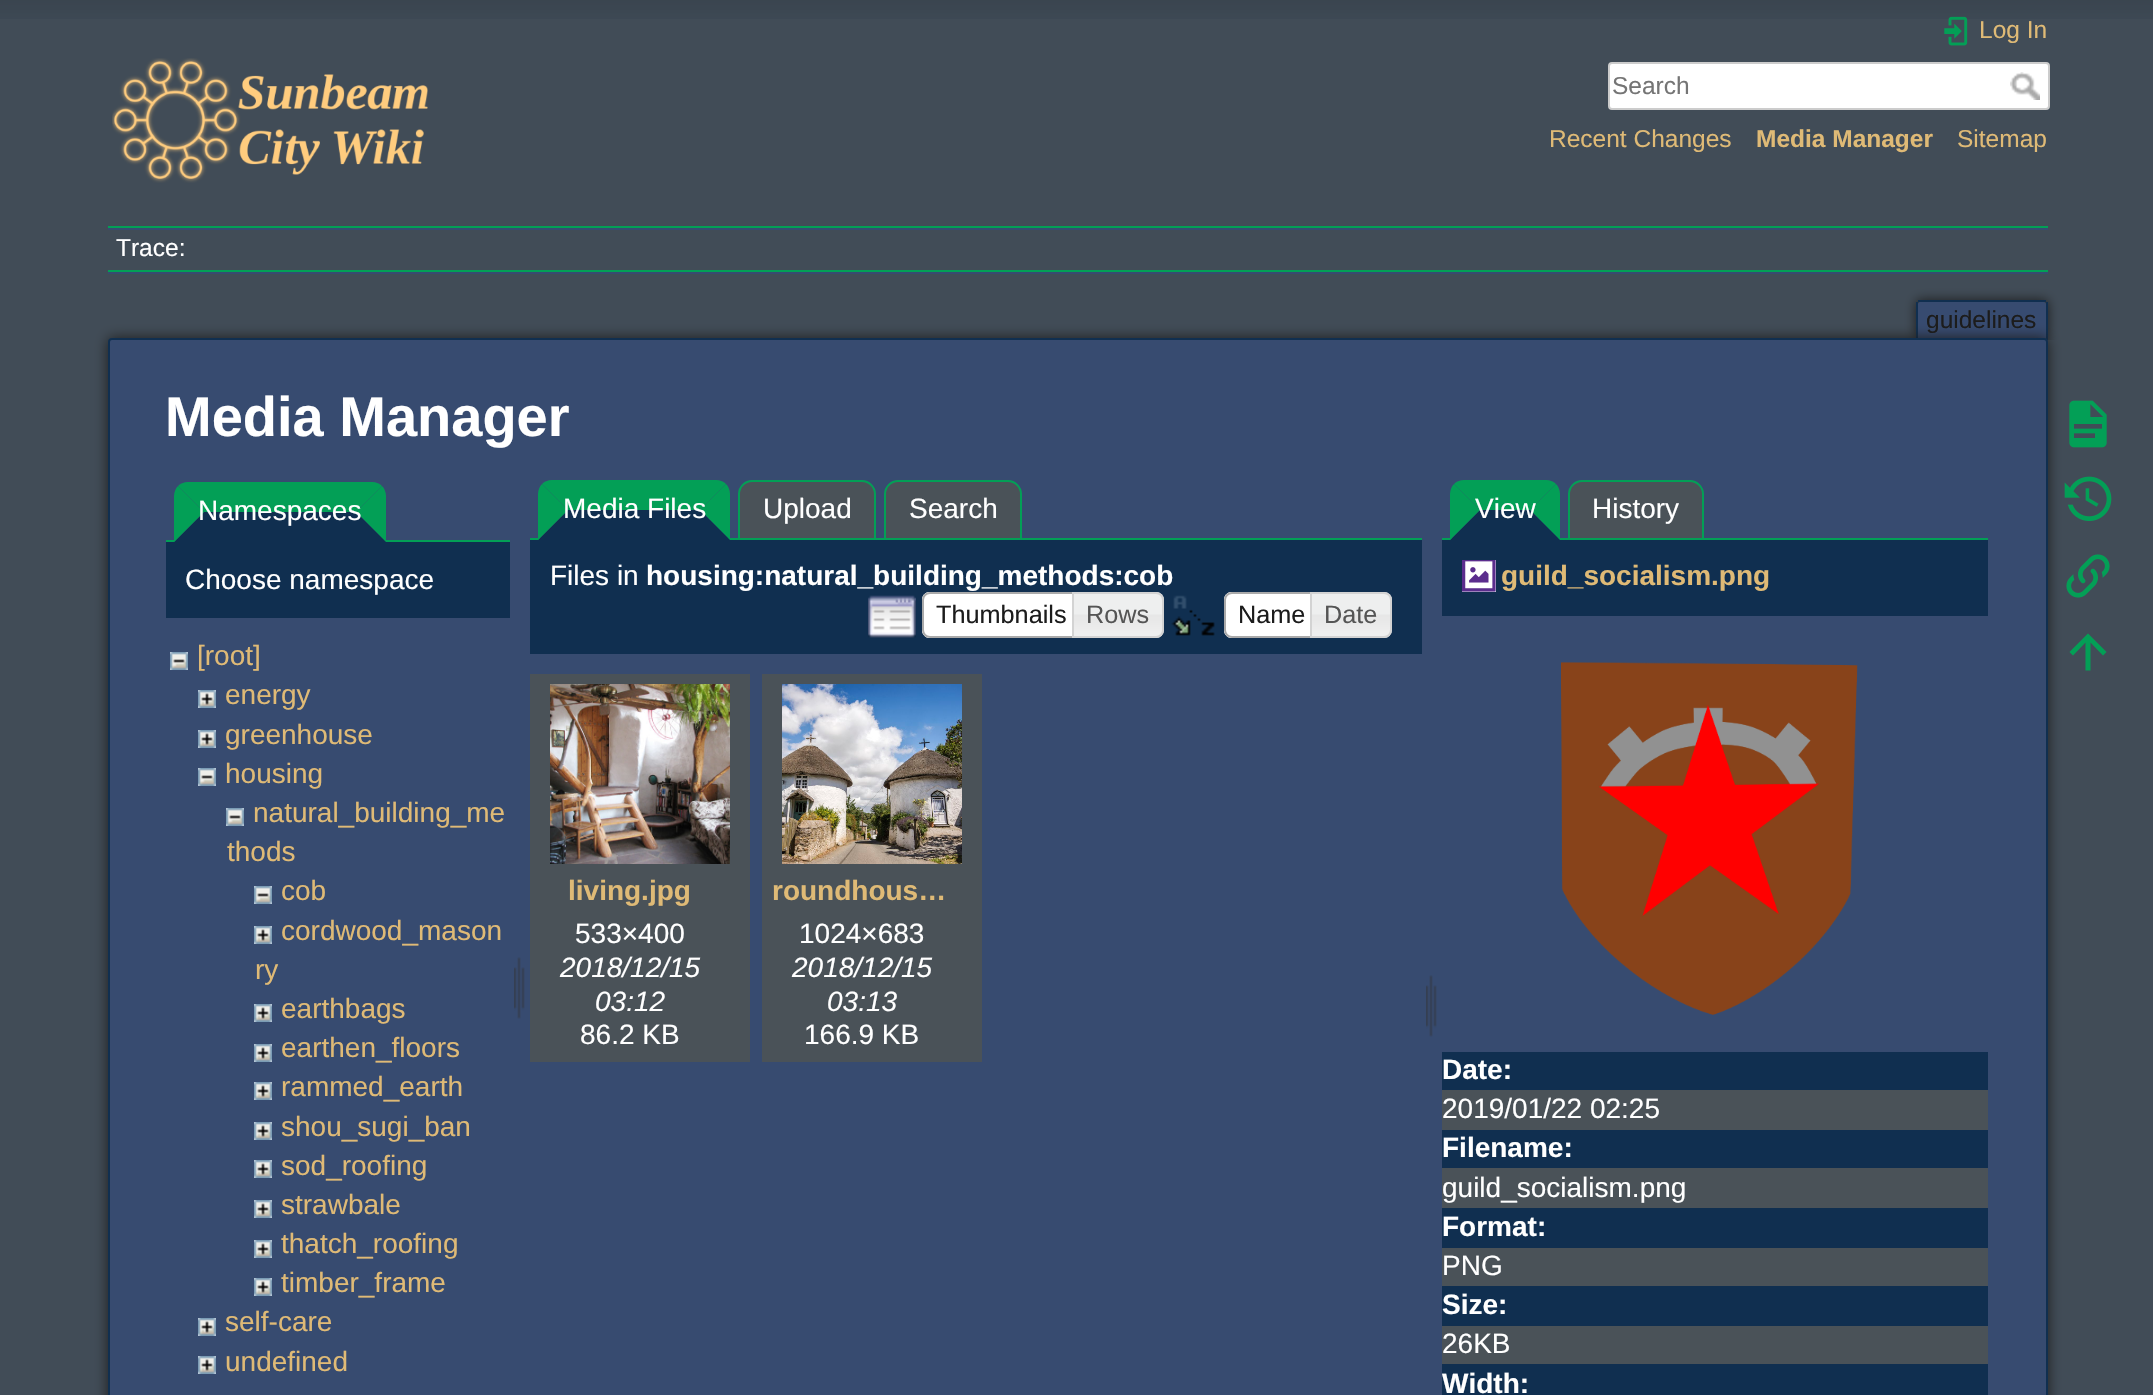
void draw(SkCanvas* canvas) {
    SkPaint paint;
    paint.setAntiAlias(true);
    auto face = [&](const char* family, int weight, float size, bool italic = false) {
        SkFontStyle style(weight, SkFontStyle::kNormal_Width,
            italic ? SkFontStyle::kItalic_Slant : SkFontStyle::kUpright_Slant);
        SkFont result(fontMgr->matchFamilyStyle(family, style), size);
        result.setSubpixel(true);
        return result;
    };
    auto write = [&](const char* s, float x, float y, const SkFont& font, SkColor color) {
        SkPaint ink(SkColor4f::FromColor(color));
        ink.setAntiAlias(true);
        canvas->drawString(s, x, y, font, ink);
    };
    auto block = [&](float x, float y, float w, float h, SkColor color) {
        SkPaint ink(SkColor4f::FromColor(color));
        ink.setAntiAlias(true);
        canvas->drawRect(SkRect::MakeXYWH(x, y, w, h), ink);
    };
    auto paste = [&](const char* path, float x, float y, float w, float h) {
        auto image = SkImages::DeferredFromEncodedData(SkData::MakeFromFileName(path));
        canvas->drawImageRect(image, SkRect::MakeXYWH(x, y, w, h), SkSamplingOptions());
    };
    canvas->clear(SkColorSetRGB(65, 76, 87));
    paste("pic1.png", 0, 0, 2153, 19);
    paste("pic2.png", 112, 58, 316, 125);
    paste("pic3.png", 1944, 16, 24, 30);
    auto kFont1 = face("Liberation Sans", 400, 24.5f);
    write("Log In", 1979, 38, kFont1, SkColorSetRGB(223, 186, 118));
    paint.setColor(SK_ColorWHITE);
    canvas->drawRoundRect(SkRect::MakeXYWH(1609, 63, 440, 46), 3, 3, paint);
    paint.setStyle(SkPaint::kStroke_Style);
    paint.setStrokeWidth(2);
    paint.setColor(SkColorSetRGB(204, 204, 204));
    canvas->drawRoundRect(SkRect::MakeXYWH(1609, 63, 440, 46), 3, 3, paint);
    write("Search", 1612, 94, kFont1, SkColorSetRGB(117, 117, 117));
    paste("pic4.png", 2010, 72, 30, 28);
    write("Recent Changes", 1549, 147, kFont1, SkColorSetRGB(223, 186, 118));
    auto kFont2 = face("Liberation Sans", 700, 24.5f);
    write("Media Manager", 1756, 147, kFont2, SkColorSetRGB(223, 186, 118));
    write("Sitemap", 1957, 147, kFont1, SkColorSetRGB(223, 186, 118));
    block(108, 226, 1940, 2, SkColorSetRGB(3, 159, 86));
    block(108, 272, 1940, 2, SkColorSetRGB(55, 75, 112));
    block(108, 228, 1940, 2, SkColorSetRGB(55, 75, 112));
    block(108, 270, 1940, 2, SkColorSetRGB(3, 159, 86));
    write("Trace:", 116, 256, kFont1, SK_ColorWHITE);
    canvas->save();
    canvas->clipRect(SkRect::MakeXYWH(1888, 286, 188, 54));
    paint.setStyle(SkPaint::kFill_Style);
    paint.setColor(SkColorSetRGB(28, 28, 28));
    paint.setMaskFilter(SkMaskFilter::MakeBlur(kNormal_SkBlurStyle, 6));
    canvas->drawRoundRect(SkRect::MakeXYWH(1916, 300, 132, 40), 4, 4, paint);
    paint.setMaskFilter(nullptr);
    canvas->restore();
    paint.setColor(SkColorSetRGB(55, 75, 112));
    canvas->drawPath(SkPathBuilder().moveTo(1920, 302).lineTo(2044, 302).cubicTo(2045, 302, 2046, 303, 2046, 304).lineTo(2046, 340).lineTo(1918, 340).lineTo(1918, 304).cubicTo(1918, 303, 1919, 302, 1920, 302).close().detach(), paint);
    block(1918, 300, 128, 2, SkColorSetRGB(16, 47, 80));
    block(2046, 302, 2, 38, SkColorSetRGB(16, 47, 80));
    block(1916, 302, 2, 38, SkColorSetRGB(16, 47, 80));
    write("guidelines", 1926, 328, kFont1, SkColorSetRGB(28, 28, 28));
    paint.setColor(SkColorSetRGB(28, 28, 28));
    paint.setMaskFilter(SkMaskFilter::MakeBlur(kNormal_SkBlurStyle, 7));
    canvas->drawRoundRect(SkRect::MakeXYWH(108, 338, 1940, 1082), 4, 4, paint);
    paint.setMaskFilter(nullptr);
    paint.setColor(SkColorSetRGB(55, 75, 112));
    canvas->drawRoundRect(SkRect::MakeXYWH(109, 339, 1938, 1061), 3, 3, paint);
    paint.setStyle(SkPaint::kStroke_Style);
    paint.setColor(SkColorSetRGB(16, 47, 80));
    canvas->drawRoundRect(SkRect::MakeXYWH(109, 339, 1938, 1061), 3, 3, paint);
    auto kFont3 = face("Liberation Sans", 700, 56);
    write("Media Manager", 165, 436, kFont3, SK_ColorWHITE);
    paint.setStyle(SkPaint::kFill_Style);
    paint.setColor(SkColorSetRGB(3, 159, 86));
    canvas->drawPath(SkPathBuilder().moveTo(188, 482).lineTo(372, 482).cubicTo(376, 482, 380, 484, 382, 486).lineTo(356, 512).lineTo(204, 512).lineTo(178, 486).cubicTo(180, 484, 184, 482, 188, 482).close().detach(), paint);
    block(166, 540, 344, 2, SkColorSetRGB(3, 159, 86));
    canvas->drawPath(SkPathBuilder().moveTo(382, 486).lineTo(356, 512).lineTo(386, 542).lineTo(386, 496).cubicTo(386, 492, 384, 488, 382, 486).close().detach(), paint);
    paint.setColor(SkColorSetRGB(16, 47, 80));
    canvas->drawPath(SkPathBuilder().moveTo(386, 542).lineTo(356, 512).lineTo(204, 512).lineTo(174, 542).close().detach(), paint);
    paint.setColor(SkColorSetRGB(3, 159, 86));
    canvas->drawPath(SkPathBuilder().moveTo(174, 542).lineTo(174, 496).cubicTo(174, 492, 176, 488, 178, 486).lineTo(204, 512).close().detach(), paint);
    auto kFont4 = face("Liberation Sans", 400, 28);
    write("Namespaces", 198, 520, kFont4, SK_ColorWHITE);
    block(166, 542, 344, 76, SkColorSetRGB(16, 47, 80));
    write("Choose namespace", 185, 589, kFont4, SK_ColorWHITE);
    paste("pic5.png", 170, 652, 18, 18);
    write("[root]", 197, 665, kFont4, SkColorSetRGB(223, 186, 118));
    paste("pic6.png", 198, 690, 18, 18);
    write("energy", 225, 704, kFont4, SkColorSetRGB(223, 186, 118));
    paste("pic6.png", 198, 730, 18, 18);
    write("greenhouse", 225, 744, kFont4, SkColorSetRGB(223, 186, 118));
    paste("pic5.png", 198, 768, 18, 18);
    write("housing", 225, 783, kFont4, SkColorSetRGB(223, 186, 118));
    paste("pic5.png", 226, 808, 18, 18);
    write("natural_building_me", 253, 822, kFont4, SkColorSetRGB(223, 186, 118));
    write("thods", 227, 861, kFont4, SkColorSetRGB(223, 186, 118));
    paste("pic5.png", 254, 886, 18, 18);
    write("cob", 281, 900, kFont4, SkColorSetRGB(223, 186, 118));
    paste("pic6.png", 254, 926, 18, 18);
    write("cordwood_mason", 281, 940, kFont4, SkColorSetRGB(223, 186, 118));
    write("ry", 255, 979, kFont4, SkColorSetRGB(223, 186, 118));
    paste("pic6.png", 254, 1004, 18, 18);
    write("earthbags", 281, 1018, kFont4, SkColorSetRGB(223, 186, 118));
    paste("pic6.png", 254, 1044, 18, 18);
    write("earthen_floors", 281, 1057, kFont4, SkColorSetRGB(223, 186, 118));
    paste("pic6.png", 254, 1082, 18, 18);
    write("rammed_earth", 281, 1096, kFont4, SkColorSetRGB(223, 186, 118));
    paste("pic6.png", 254, 1122, 18, 18);
    write("shou_sugi_ban", 281, 1136, kFont4, SkColorSetRGB(223, 186, 118));
    paste("pic6.png", 254, 1160, 18, 18);
    write("sod_roofing", 281, 1175, kFont4, SkColorSetRGB(223, 186, 118));
    paste("pic6.png", 254, 1200, 18, 18);
    write("strawbale", 281, 1214, kFont4, SkColorSetRGB(223, 186, 118));
    paste("pic6.png", 254, 1240, 18, 18);
    write("thatch_roofing", 281, 1253, kFont4, SkColorSetRGB(223, 186, 118));
    paste("pic6.png", 254, 1278, 18, 18);
    write("timber_frame", 281, 1292, kFont4, SkColorSetRGB(223, 186, 118));
    paste("pic6.png", 198, 1318, 18, 18);
    write("self-care", 225, 1331, kFont4, SkColorSetRGB(223, 186, 118));
    paste("pic6.png", 198, 1356, 18, 18);
    write("undefined", 225, 1371, kFont4, SkColorSetRGB(223, 186, 118));
    paste("pic7.png", 514, 957, 11, 62);
    canvas->drawPath(SkPathBuilder().moveTo(552, 480).lineTo(716, 480).cubicTo(720, 480, 724, 482, 726, 484).lineTo(700, 510).lineTo(568, 510).lineTo(542, 484).cubicTo(544, 482, 548, 480, 552, 480).close().detach(), paint);
    paint.setColor(SkColorSetRGB(74, 82, 88));
    canvas->drawPath(SkPathBuilder().moveTo(752, 481).lineTo(862, 481).cubicTo(869, 481, 875, 487, 875, 494).lineTo(875, 539).lineTo(739, 539).lineTo(739, 494).cubicTo(739, 487, 745, 481, 752, 481).close().detach(), paint);
    paint.setStyle(SkPaint::kStroke_Style);
    paint.setColor(SkColorSetRGB(3, 159, 86));
    canvas->drawPath(SkPathBuilder().moveTo(752, 481).lineTo(862, 481).cubicTo(869, 481, 875, 487, 875, 494).lineTo(875, 539).lineTo(739, 539).lineTo(739, 494).cubicTo(739, 487, 745, 481, 752, 481).close().detach(), paint);
    paint.setStyle(SkPaint::kFill_Style);
    paint.setColor(SkColorSetRGB(74, 82, 88));
    canvas->drawPath(SkPathBuilder().moveTo(898, 481).lineTo(1008, 481).cubicTo(1015, 481, 1021, 487, 1021, 494).lineTo(1021, 539).lineTo(885, 539).lineTo(885, 494).cubicTo(885, 487, 891, 481, 898, 481).close().detach(), paint);
    paint.setStyle(SkPaint::kStroke_Style);
    paint.setColor(SkColorSetRGB(3, 159, 86));
    canvas->drawPath(SkPathBuilder().moveTo(898, 481).lineTo(1008, 481).cubicTo(1015, 481, 1021, 487, 1021, 494).lineTo(1021, 539).lineTo(885, 539).lineTo(885, 494).cubicTo(885, 487, 891, 481, 898, 481).close().detach(), paint);
    block(530, 538, 892, 2, SkColorSetRGB(3, 159, 86));
    paint.setStyle(SkPaint::kFill_Style);
    canvas->drawPath(SkPathBuilder().moveTo(726, 484).lineTo(700, 510).lineTo(730, 540).lineTo(730, 494).cubicTo(730, 490, 728, 486, 726, 484).close().detach(), paint);
    paint.setColor(SkColorSetRGB(16, 47, 80));
    canvas->drawPath(SkPathBuilder().moveTo(730, 540).lineTo(700, 510).lineTo(568, 510).lineTo(538, 540).close().detach(), paint);
    paint.setColor(SkColorSetRGB(3, 159, 86));
    canvas->drawPath(SkPathBuilder().moveTo(538, 540).lineTo(538, 494).cubicTo(538, 490, 540, 486, 542, 484).lineTo(568, 510).close().detach(), paint);
    write("Media Files", 563, 518, kFont4, SK_ColorWHITE);
    write("Upload", 763, 518, kFont4, SK_ColorWHITE);
    write("Search", 909, 518, kFont4, SK_ColorWHITE);
    block(530, 540, 892, 114, SkColorSetRGB(16, 47, 80));
    write("Files in", 550, 585, kFont4, SK_ColorWHITE);
    auto kFont5 = face("Liberation Sans", 700, 28);
    write("housing:natural_building_methods:cob", 646, 585, kFont5, SK_ColorWHITE);
    paste("pic8.png", 868, 595, 48, 43);
    paint.setColor(SK_ColorWHITE);
    canvas->drawPath(SkPathBuilder().moveTo(930, 592).lineTo(1082, 592).lineTo(1082, 638).lineTo(930, 638).cubicTo(925.5f, 638, 922, 634.5f, 922, 630).lineTo(922, 600).cubicTo(922, 595.5f, 925.5f, 592, 930, 592).close().detach(), paint);
    paste("pic9.png", 922, 592, 8, 46);
    paint.setStyle(SkPaint::kStroke_Style);
    paint.setColor(SkColorSetRGB(170, 170, 170));
    canvas->drawPath(SkPathBuilder().moveTo(930, 593).lineTo(1081, 593).lineTo(1081, 637).lineTo(930, 637).cubicTo(926, 637, 923, 634, 923, 630).lineTo(923, 600).cubicTo(923, 596, 926, 593, 930, 593).close().detach(), paint);
    auto kFont6 = face("Liberation Sans", 400, 25.25f);
    write("Thumbnails", 936, 623, kFont6, SkColorSetRGB(28, 28, 28));
    paste("pic10.png", 1074, 592, 90, 46);
    paint.setColor(SkColorSetRGB(211, 211, 211));
    canvas->drawPath(SkPathBuilder().moveTo(1073, 593).lineTo(1156, 593).cubicTo(1160, 593, 1163, 596, 1163, 600).lineTo(1163, 630).cubicTo(1163, 634, 1160, 637, 1156, 637).lineTo(1073, 637).close().detach(), paint);
    write("Rows", 1086, 623, kFont6, SkColorSetRGB(85, 85, 85));
    paste("pic11.png", 1171, 595, 44, 41);
    paint.setStyle(SkPaint::kFill_Style);
    paint.setColor(SK_ColorWHITE);
    canvas->drawPath(SkPathBuilder().moveTo(1232, 592).lineTo(1320, 592).lineTo(1320, 638).lineTo(1232, 638).cubicTo(1227.5f, 638, 1224, 634.5f, 1224, 630).lineTo(1224, 600).cubicTo(1224, 595.5f, 1227.5f, 592, 1232, 592).close().detach(), paint);
    paste("pic9.png", 1224, 592, 8, 46);
    paint.setStyle(SkPaint::kStroke_Style);
    paint.setColor(SkColorSetRGB(170, 170, 170));
    canvas->drawPath(SkPathBuilder().moveTo(1232, 593).lineTo(1319, 593).lineTo(1319, 637).lineTo(1232, 637).cubicTo(1228, 637, 1225, 634, 1225, 630).lineTo(1225, 600).cubicTo(1225, 596, 1228, 593, 1232, 593).close().detach(), paint);
    write("Name", 1238, 623, kFont6, SkColorSetRGB(28, 28, 28));
    paste("pic12.png", 1312, 592, 80, 46);
    paint.setColor(SkColorSetRGB(211, 211, 211));
    canvas->drawPath(SkPathBuilder().moveTo(1311, 593).lineTo(1384, 593).cubicTo(1388, 593, 1391, 596, 1391, 600).lineTo(1391, 630).cubicTo(1391, 634, 1388, 637, 1384, 637).lineTo(1311, 637).close().detach(), paint);
    write("Date", 1324, 623, kFont6, SkColorSetRGB(85, 85, 85));
    block(530, 674, 220, 388, SkColorSetRGB(74, 82, 88));
    paste("pic13.png", 550, 684, 180, 180);
    write("living.jpg", 568, 900, kFont5, SkColorSetRGB(223, 186, 118));
    write("533×400", 575, 943, kFont4, SK_ColorWHITE);
    auto kFont7 = face("Liberation Sans", 400, 28, true);
    write("2018/12/15", 560, 977, kFont7, SK_ColorWHITE);
    write("03:12", 595, 1011, kFont7, SK_ColorWHITE);
    write("86.2 KB", 580, 1044, kFont4, SK_ColorWHITE);
    block(762, 674, 220, 388, SkColorSetRGB(74, 82, 88));
    paste("pic14.png", 782, 684, 180, 180);
    write("roundhous…", 772, 900, kFont5, SkColorSetRGB(223, 186, 118));
    write("1024×683", 799, 943, kFont4, SK_ColorWHITE);
    write("2018/12/15", 792, 977, kFont7, SK_ColorWHITE);
    write("03:13", 827, 1011, kFont7, SK_ColorWHITE);
    write("166.9 KB", 804, 1044, kFont4, SK_ColorWHITE);
    paste("pic7.png", 1426, 975, 11, 62);
    paint.setStyle(SkPaint::kFill_Style);
    paint.setColor(SkColorSetRGB(3, 159, 86));
    canvas->drawPath(SkPathBuilder().moveTo(1464, 480).lineTo(1546, 480).cubicTo(1550, 480, 1554, 482, 1556, 484).lineTo(1530, 510).lineTo(1480, 510).lineTo(1454, 484).cubicTo(1456, 482, 1460, 480, 1464, 480).close().detach(), paint);
    paint.setColor(SkColorSetRGB(74, 82, 88));
    canvas->drawPath(SkPathBuilder().moveTo(1582, 481).lineTo(1690, 481).cubicTo(1697, 481, 1703, 487, 1703, 494).lineTo(1703, 539).lineTo(1569, 539).lineTo(1569, 494).cubicTo(1569, 487, 1575, 481, 1582, 481).close().detach(), paint);
    paint.setStyle(SkPaint::kStroke_Style);
    paint.setColor(SkColorSetRGB(3, 159, 86));
    canvas->drawPath(SkPathBuilder().moveTo(1582, 481).lineTo(1690, 481).cubicTo(1697, 481, 1703, 487, 1703, 494).lineTo(1703, 539).lineTo(1569, 539).lineTo(1569, 494).cubicTo(1569, 487, 1575, 481, 1582, 481).close().detach(), paint);
    block(1442, 538, 546, 2, SkColorSetRGB(3, 159, 86));
    paint.setStyle(SkPaint::kFill_Style);
    canvas->drawPath(SkPathBuilder().moveTo(1556, 484).lineTo(1530, 510).lineTo(1560, 540).lineTo(1560, 494).cubicTo(1560, 490, 1558, 486, 1556, 484).close().detach(), paint);
    paint.setColor(SkColorSetRGB(16, 47, 80));
    canvas->drawPath(SkPathBuilder().moveTo(1560, 540).lineTo(1530, 510).lineTo(1480, 510).lineTo(1450, 540).close().detach(), paint);
    paint.setColor(SkColorSetRGB(3, 159, 86));
    canvas->drawPath(SkPathBuilder().moveTo(1450, 540).lineTo(1450, 494).cubicTo(1450, 490, 1452, 486, 1454, 484).lineTo(1480, 510).close().detach(), paint);
    write("View", 1475, 518, kFont4, SK_ColorWHITE);
    write("History", 1592, 518, kFont4, SK_ColorWHITE);
    block(1442, 540, 546, 76, SkColorSetRGB(16, 47, 80));
    paste("pic15.png", 1462, 560, 34, 32);
    write("guild_socialism.png", 1501, 585, kFont5, SkColorSetRGB(223, 186, 118));
    paste("pic16.png", 1561, 662, 297, 353);
    block(1442, 1052, 546, 38, SkColorSetRGB(16, 47, 80));
    write("Date:", 1442, 1079, kFont5, SK_ColorWHITE);
    block(1442, 1090, 546, 40, SkColorSetRGB(74, 82, 88));
    write("2019/01/22 02:25", 1442, 1118, kFont4, SK_ColorWHITE);
    block(1442, 1130, 546, 38, SkColorSetRGB(16, 47, 80));
    write("Filename:", 1442, 1157, kFont5, SK_ColorWHITE);
    block(1442, 1168, 546, 40, SkColorSetRGB(74, 82, 88));
    write("guild_socialism.png", 1442, 1197, kFont4, SK_ColorWHITE);
    block(1442, 1208, 546, 40, SkColorSetRGB(16, 47, 80));
    write("Format:", 1442, 1236, kFont5, SK_ColorWHITE);
    block(1442, 1248, 546, 38, SkColorSetRGB(74, 82, 88));
    write("PNG", 1442, 1275, kFont4, SK_ColorWHITE);
    block(1442, 1286, 546, 40, SkColorSetRGB(16, 47, 80));
    write("Size:", 1442, 1314, kFont5, SK_ColorWHITE);
    block(1442, 1326, 546, 38, SkColorSetRGB(74, 82, 88));
    write("26KB", 1442, 1353, kFont4, SK_ColorWHITE);
    block(1442, 1364, 546, 31, SkColorSetRGB(16, 47, 80));
    write("Width:", 1442, 1393, kFont5, SK_ColorWHITE);
    paste("pic17.png", 2069, 400, 38, 48);
    paste("pic18.png", 2064, 476, 48, 45);
    paste("pic19.png", 2066, 554, 44, 44);
    canvas->drawPath(SkPathBuilder().moveTo(2090.5f, 670.5f).lineTo(2085.5f, 670.5f).lineTo(2085.5f, 642.5f).lineTo(2073, 655.5f).lineTo(2069.5f, 652).lineTo(2088, 633.5f).lineTo(2106.5f, 652).lineTo(2103, 655.5f).lineTo(2090.5f, 642.5f).close().detach(), paint);
}
